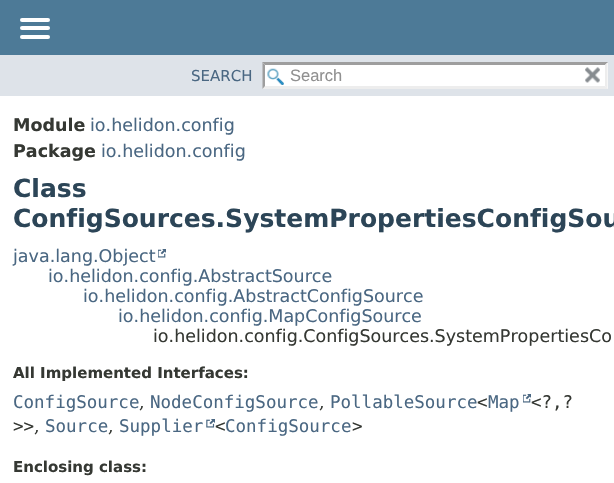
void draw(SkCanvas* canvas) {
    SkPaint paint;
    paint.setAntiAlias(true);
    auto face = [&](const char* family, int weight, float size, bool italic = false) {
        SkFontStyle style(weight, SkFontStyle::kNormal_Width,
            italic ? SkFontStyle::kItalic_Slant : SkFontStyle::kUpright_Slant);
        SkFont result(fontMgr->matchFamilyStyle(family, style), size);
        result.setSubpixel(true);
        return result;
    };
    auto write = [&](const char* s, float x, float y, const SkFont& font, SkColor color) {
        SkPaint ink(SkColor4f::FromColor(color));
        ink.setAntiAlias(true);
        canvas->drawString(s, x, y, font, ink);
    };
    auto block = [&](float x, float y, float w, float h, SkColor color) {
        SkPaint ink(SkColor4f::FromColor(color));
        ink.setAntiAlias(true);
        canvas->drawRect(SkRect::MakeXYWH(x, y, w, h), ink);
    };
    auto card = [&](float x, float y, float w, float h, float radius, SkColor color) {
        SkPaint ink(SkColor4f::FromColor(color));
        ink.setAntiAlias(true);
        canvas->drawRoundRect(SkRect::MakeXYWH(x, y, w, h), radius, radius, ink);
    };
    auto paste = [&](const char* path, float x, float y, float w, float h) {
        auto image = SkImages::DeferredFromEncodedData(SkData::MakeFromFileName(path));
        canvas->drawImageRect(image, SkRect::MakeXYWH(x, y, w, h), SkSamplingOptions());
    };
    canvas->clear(SK_ColorWHITE);
    block(0, 0, 614, 55, SkColorSetRGB(77, 122, 151));
    card(20, 18, 30, 4, 2, SK_ColorWHITE);
    card(20, 26, 30, 4, 2, SK_ColorWHITE);
    card(20, 35, 30, 4, 2, SK_ColorWHITE);
    block(0, 55, 614, 41, SkColorSetRGB(222, 227, 233));
    auto kFont1 = face("DejaVu Sans", 400, 15);
    write("SEARCH", 191, 81, kFont1, SkColorSetRGB(74, 103, 130));
    block(263, 63, 345, 26, SK_ColorWHITE);
    paste("pic1.png", 267, 68, 17, 17);
    paint.setColor(SkColorSetRGB(158, 158, 158));
    canvas->drawPath(SkPathBuilder().moveTo(262, 62).lineTo(608, 62).lineTo(605, 65).lineTo(265, 65).close().detach(), paint);
    paint.setColor(SkColorSetRGB(237, 237, 237));
    canvas->drawPath(SkPathBuilder().moveTo(607.5f, 62.5f).lineTo(607.5f, 89).lineTo(605, 86).lineTo(605, 65).close().detach(), paint);
    canvas->drawPath(SkPathBuilder().moveTo(608, 89).lineTo(262, 89).lineTo(265, 86).lineTo(605, 86).close().detach(), paint);
    paint.setColor(SkColorSetRGB(158, 158, 158));
    canvas->drawPath(SkPathBuilder().moveTo(262.5f, 89).lineTo(262.5f, 62.5f).lineTo(265, 65).lineTo(265, 86).close().detach(), paint);
    auto kFont2 = face("Liberation Sans", 400, 16.5f);
    write("Search", 290, 81, kFont2, SkColorSetRGB(144, 144, 144));
    paste("pic2.png", 585, 67, 15, 16);
    auto kFont3 = face("DejaVu Sans", 700, 17.5f);
    write("Module", 13, 131, kFont3, SkColorSetRGB(53, 56, 51));
    auto kFont4 = face("DejaVu Sans", 400, 17.5f);
    write("io.helidon.config", 90, 131, kFont4, SkColorSetRGB(74, 103, 130));
    write("Package", 13, 157, kFont3, SkColorSetRGB(53, 56, 51));
    write("io.helidon.config", 101, 157, kFont4, SkColorSetRGB(74, 103, 130));
    auto kFont5 = face("DejaVu Sans", 700, 25);
    write("Class", 13, 197, kFont5, SkColorSetRGB(44, 69, 87));
    write("ConfigSources.SystemPropertiesConfigSou", 13, 227, kFont5, SkColorSetRGB(44, 69, 87));
    write("java.lang.Object", 13, 262, kFont4, SkColorSetRGB(74, 103, 130));
    paste("pic3.png", 158, 249, 8, 9);
    write("io.helidon.config.AbstractSource", 48, 282, kFont4, SkColorSetRGB(74, 103, 130));
    write("io.helidon.config.AbstractConfigSource", 83, 302, kFont4, SkColorSetRGB(74, 103, 130));
    write("io.helidon.config.MapConfigSource", 118, 322, kFont4, SkColorSetRGB(74, 103, 130));
    write("io.helidon.config.ConfigSources.SystemPropertiesCo", 153, 342, kFont4, SkColorSetRGB(53, 56, 51));
    auto kFont6 = face("DejaVu Sans", 700, 15);
    write("All Implemented Interfaces:", 13, 378, kFont6, SkColorSetRGB(53, 56, 51));
    auto kFont7 = face("DejaVu Sans Mono", 400, 17.5f);
    write("ConfigSource", 13, 408, kFont7, SkColorSetRGB(74, 103, 130));
    write("PollableSource Map", 330, 408, kFont7, SkColorSetRGB(74, 103, 130));
    paste("pic3.png", 523, 394, 8, 9);
    write("<?,?", 531, 408, kFont7, SkColorSetRGB(53, 56, 51));
    write("<", 477, 408, kFont7, SkColorSetRGB(53, 56, 51));
    write(">>", 13, 432, kFont7, SkColorSetRGB(53, 56, 51));
    auto kFont8 = face("DejaVu Serif", 400, 17.5f);
    write(",", 139, 408, kFont8, SkColorSetRGB(53, 56, 51));
    write("NodeConfigSource", 150, 408, kFont7, SkColorSetRGB(74, 103, 130));
    write(",", 319, 408, kFont8, SkColorSetRGB(53, 56, 51));
    write(",", 34, 432, kFont8, SkColorSetRGB(53, 56, 51));
    write("Source", 45, 432, kFont7, SkColorSetRGB(74, 103, 130));
    write(",", 108, 432, kFont8, SkColorSetRGB(53, 56, 51));
    write("Supplier", 119, 432, kFont7, SkColorSetRGB(74, 103, 130));
    paste("pic4.png", 206, 419, 9, 9);
    write("<", 215, 432, kFont7, SkColorSetRGB(53, 56, 51));
    write("ConfigSource", 225, 432, kFont7, SkColorSetRGB(74, 103, 130));
    write(">", 352, 432, kFont7, SkColorSetRGB(53, 56, 51));
    write("Enclosing class:", 13, 472, kFont6, SkColorSetRGB(53, 56, 51));
}
